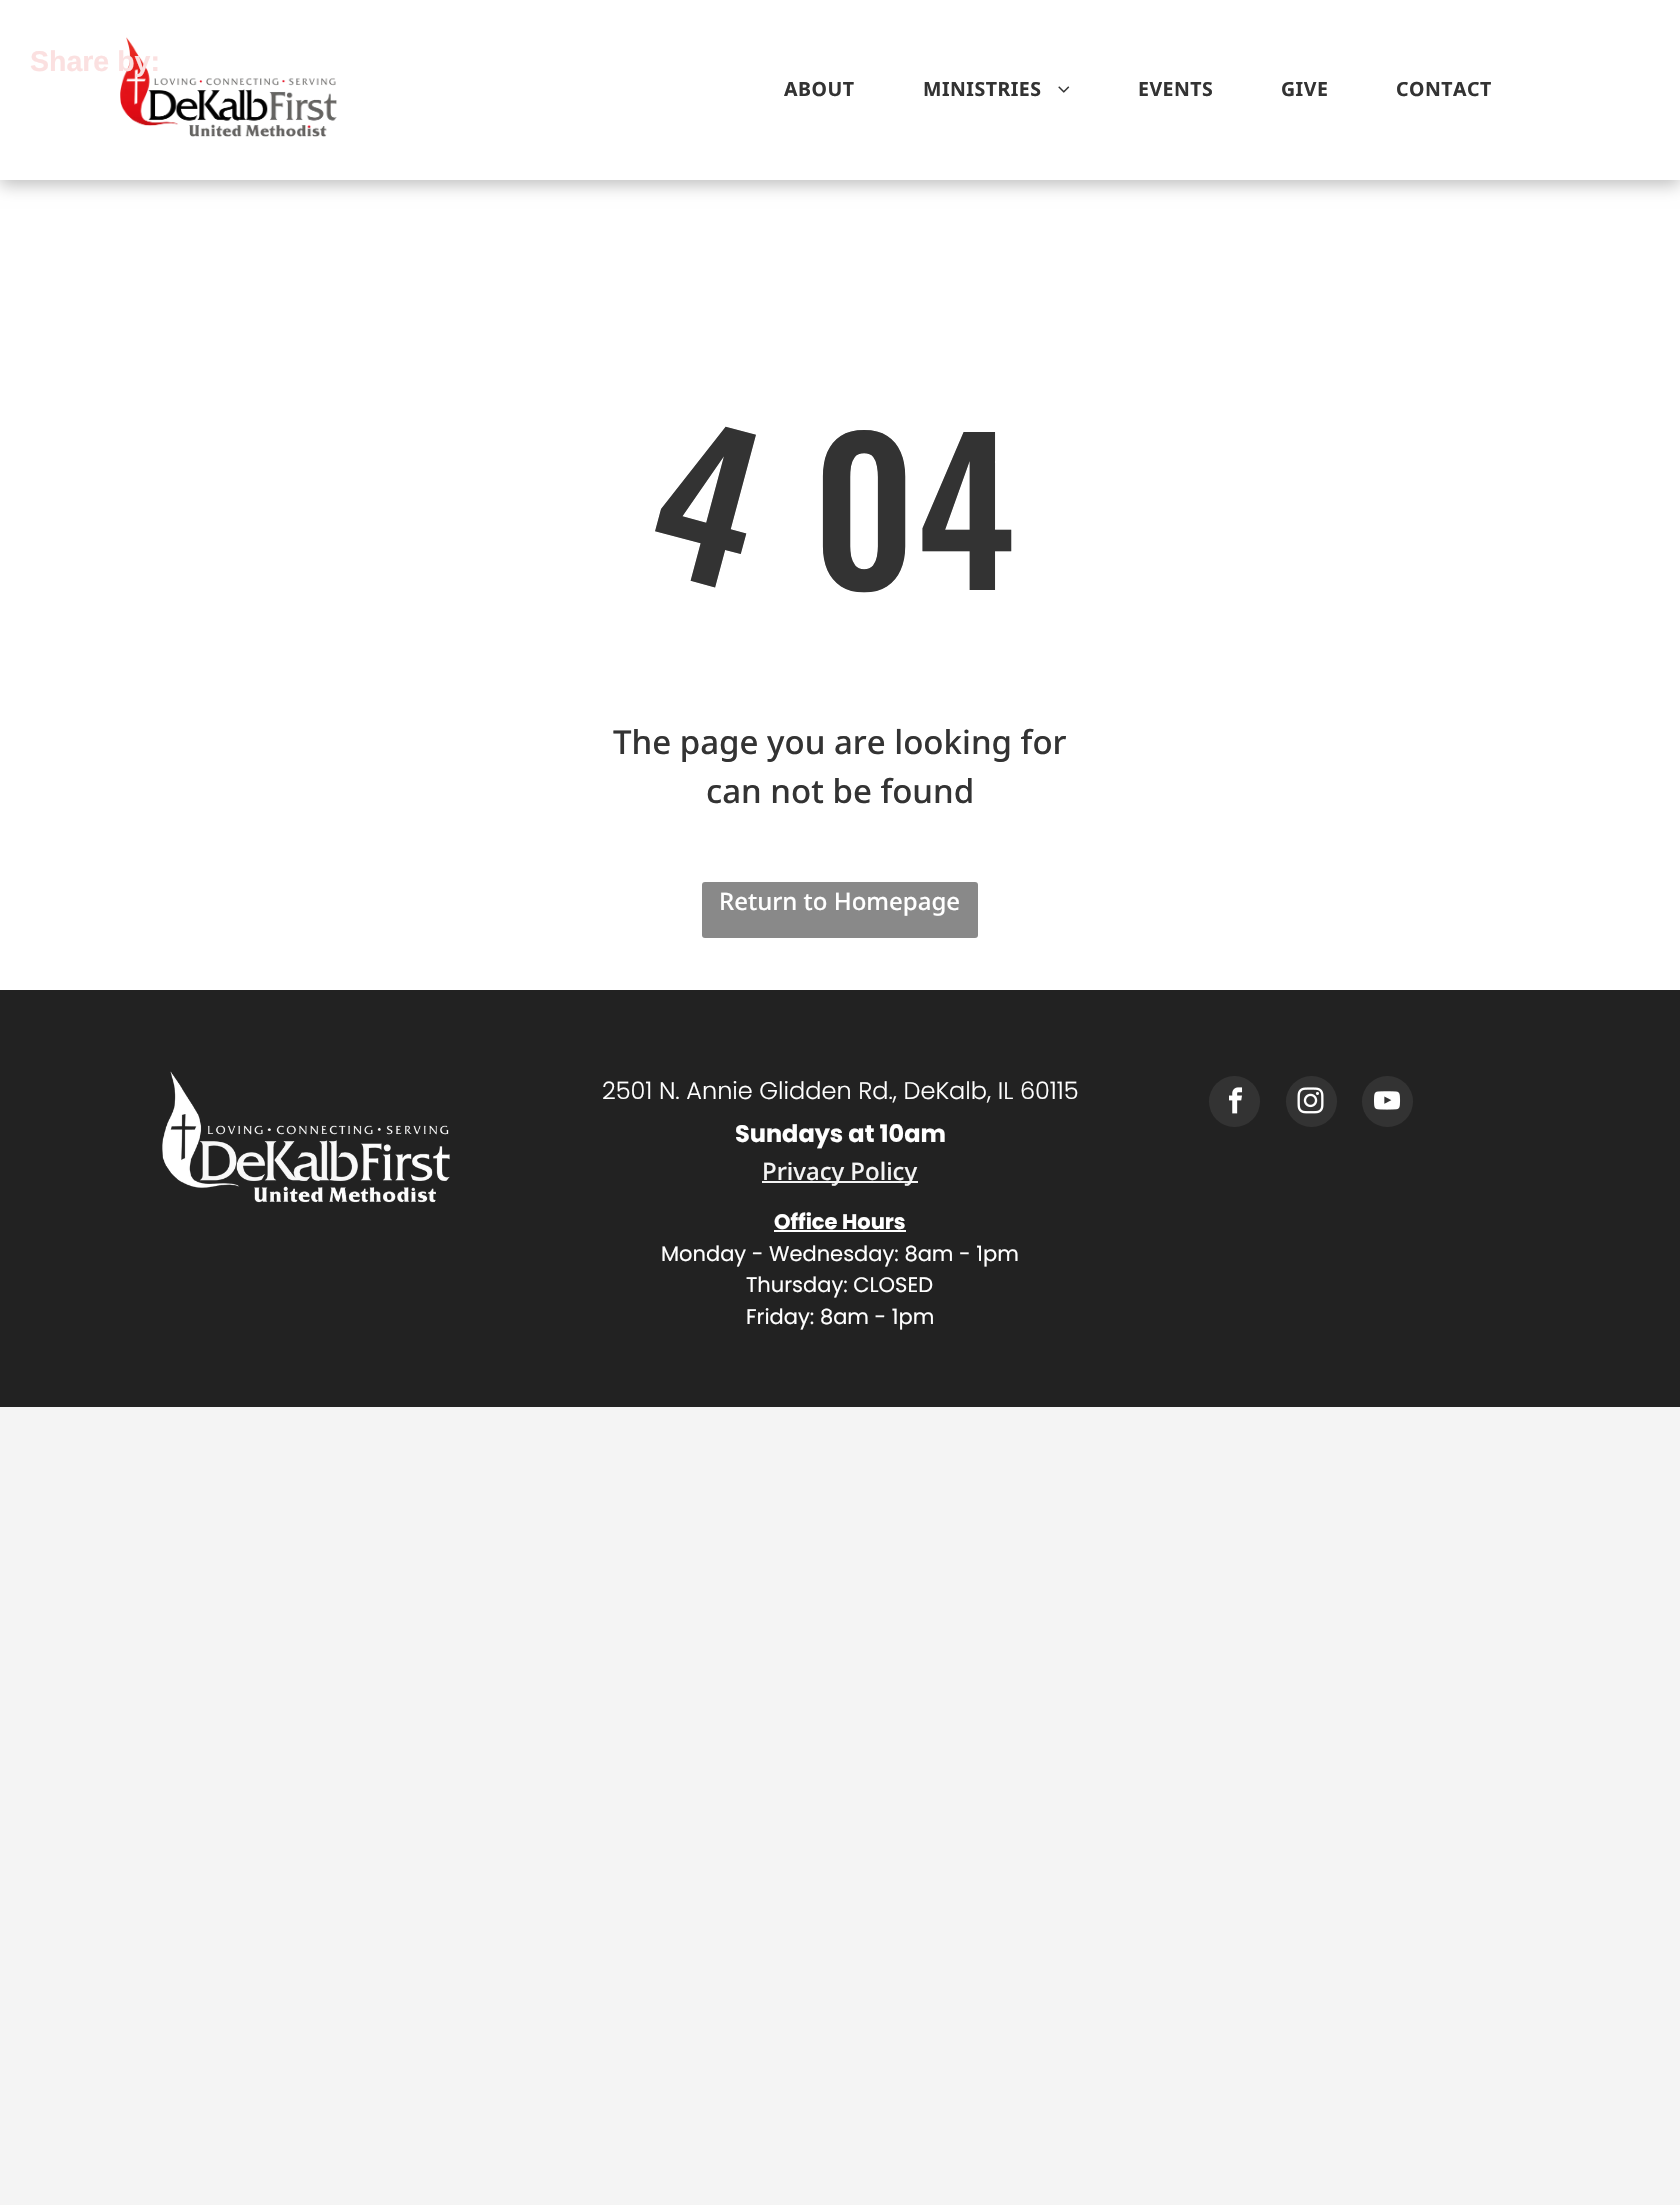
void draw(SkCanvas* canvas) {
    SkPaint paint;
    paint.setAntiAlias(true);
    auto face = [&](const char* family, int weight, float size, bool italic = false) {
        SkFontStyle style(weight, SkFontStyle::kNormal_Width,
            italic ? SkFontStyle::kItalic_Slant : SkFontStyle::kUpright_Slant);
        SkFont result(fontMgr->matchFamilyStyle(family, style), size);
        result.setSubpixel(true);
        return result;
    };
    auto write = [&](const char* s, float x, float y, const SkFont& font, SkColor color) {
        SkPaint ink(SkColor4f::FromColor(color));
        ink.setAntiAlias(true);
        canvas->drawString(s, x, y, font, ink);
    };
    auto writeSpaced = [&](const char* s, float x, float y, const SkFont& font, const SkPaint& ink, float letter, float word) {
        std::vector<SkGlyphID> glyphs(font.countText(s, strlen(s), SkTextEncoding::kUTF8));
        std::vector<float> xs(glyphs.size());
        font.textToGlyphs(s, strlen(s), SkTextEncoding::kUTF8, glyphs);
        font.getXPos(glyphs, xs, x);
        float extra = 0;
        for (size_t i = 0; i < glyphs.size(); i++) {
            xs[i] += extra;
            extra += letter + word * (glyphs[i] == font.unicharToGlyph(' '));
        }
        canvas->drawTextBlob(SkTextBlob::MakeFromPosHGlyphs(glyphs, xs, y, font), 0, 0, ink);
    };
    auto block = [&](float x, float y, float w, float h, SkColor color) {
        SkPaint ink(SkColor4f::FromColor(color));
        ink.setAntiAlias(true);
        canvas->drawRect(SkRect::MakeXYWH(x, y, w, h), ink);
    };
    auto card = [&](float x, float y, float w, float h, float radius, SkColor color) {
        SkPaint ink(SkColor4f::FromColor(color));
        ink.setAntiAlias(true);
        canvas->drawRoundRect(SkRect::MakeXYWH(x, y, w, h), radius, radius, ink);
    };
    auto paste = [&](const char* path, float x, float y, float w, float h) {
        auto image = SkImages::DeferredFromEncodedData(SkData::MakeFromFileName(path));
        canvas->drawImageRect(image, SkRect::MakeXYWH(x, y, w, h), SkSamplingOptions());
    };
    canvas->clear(SkColorSetRGB(244, 244, 244));
    block(0, 180, 1680, 810, SK_ColorWHITE);
    paint.setColor(SkColorSetARGB(64, 0, 0, 0));
    paint.setMaskFilter(SkMaskFilter::MakeBlur(kNormal_SkBlurStyle, 8));
    canvas->drawRect(SkRect::MakeXYWH(0, 5, 1680, 180), paint);
    paint.setMaskFilter(nullptr);
    block(0, 0, 1680, 180, SK_ColorWHITE);
    paste("pic1.png", 120, 37, 217, 100);
    auto kFont1 = face("Liberation Sans", 700, 28.5f);
    write("Share by:", 30, 71, kFont1, SkColorSetRGB(251, 224, 224));
    auto kFont2 = face("Noto Sans", 700, 19.5f);
    paint.setColor(SkColorSetRGB(51, 51, 51));
    writeSpaced("ABOUT", 784, 96, kFont2, paint, 0.5f, 0);
    writeSpaced("MINISTRIES", 923, 96, kFont2, paint, 0.5f, 0);
    paste("pic2.png", 1058, 86, 12, 7);
    writeSpaced("EVENTS", 1138, 96, kFont2, paint, 0.5f, 0);
    writeSpaced("GIVE", 1281, 96, kFont2, paint, 0.5f, 0);
    writeSpaced("CONTACT", 1396, 96, kFont2, paint, 0.5f, 0);
    auto kFont3 = face("Oswald", 500, 195);
    canvas->save();
    canvas->rotate(15, 639, 567);
    write("4", 639, 567, kFont3, SkColorSetRGB(51, 51, 51));
    canvas->restore();
    write("04", 812, 590, kFont3, SkColorSetRGB(51, 51, 51));
    auto kFont4 = face("Noto Sans", 500, 33);
    write("The page you are looking for", 613, 754, kFont4, SkColorSetRGB(51, 51, 51));
    write("can not be found", 706, 803, kFont4, SkColorSetRGB(51, 51, 51));
    card(702, 882, 276, 56, 3, SkColorSetRGB(137, 137, 137));
    auto kFont5 = face("Noto Sans", 500, 24);
    write("Return to Homepage", 719, 910, kFont5, SK_ColorWHITE);
    block(0, 990, 1680, 417, SkColorSetRGB(34, 34, 34));
    paste("pic3.png", 162, 1071, 288, 132);
    auto kFont6 = face("Poppins", 300, 24);
    write("2501 N. Annie Glidden Rd., DeKalb, IL 60115", 602, 1099, kFont6, SK_ColorWHITE);
    auto kFont7 = face("Poppins", 700, 24);
    write("Sundays at 10am", 735, 1142, kFont7, SK_ColorWHITE);
    block(762, 1181, 156, 2, SkColorSetRGB(244, 244, 244));
    write("Privacy Policy", 762, 1180, kFont5, SkColorSetRGB(244, 244, 244));
    auto kFont8 = face("Poppins", 700, 21);
    write("Office Hours", 774, 1229, kFont8, SK_ColorWHITE);
    block(774, 1230, 132, 2, SK_ColorWHITE);
    auto kFont9 = face("Poppins", 400, 21);
    write("Monday - Wednesday: 8am - 1pm", 661, 1261, kFont9, SK_ColorWHITE);
    write("Thursday: CLOSED", 746, 1292, kFont9, SK_ColorWHITE);
    write("Friday: 8am - 1pm", 746, 1324, kFont9, SK_ColorWHITE);
    canvas->drawCircle(1234.5f, 1101.5f, 25.5f, paint);
    paste("pic4.png", 1229, 1087, 14, 27);
    canvas->drawCircle(1311.5f, 1101.5f, 25.5f, paint);
    paste("pic5.png", 1297, 1087, 27, 27);
    canvas->drawCircle(1387.5f, 1101.5f, 25.5f, paint);
    paste("pic6.png", 1374, 1091, 27, 19);
}
